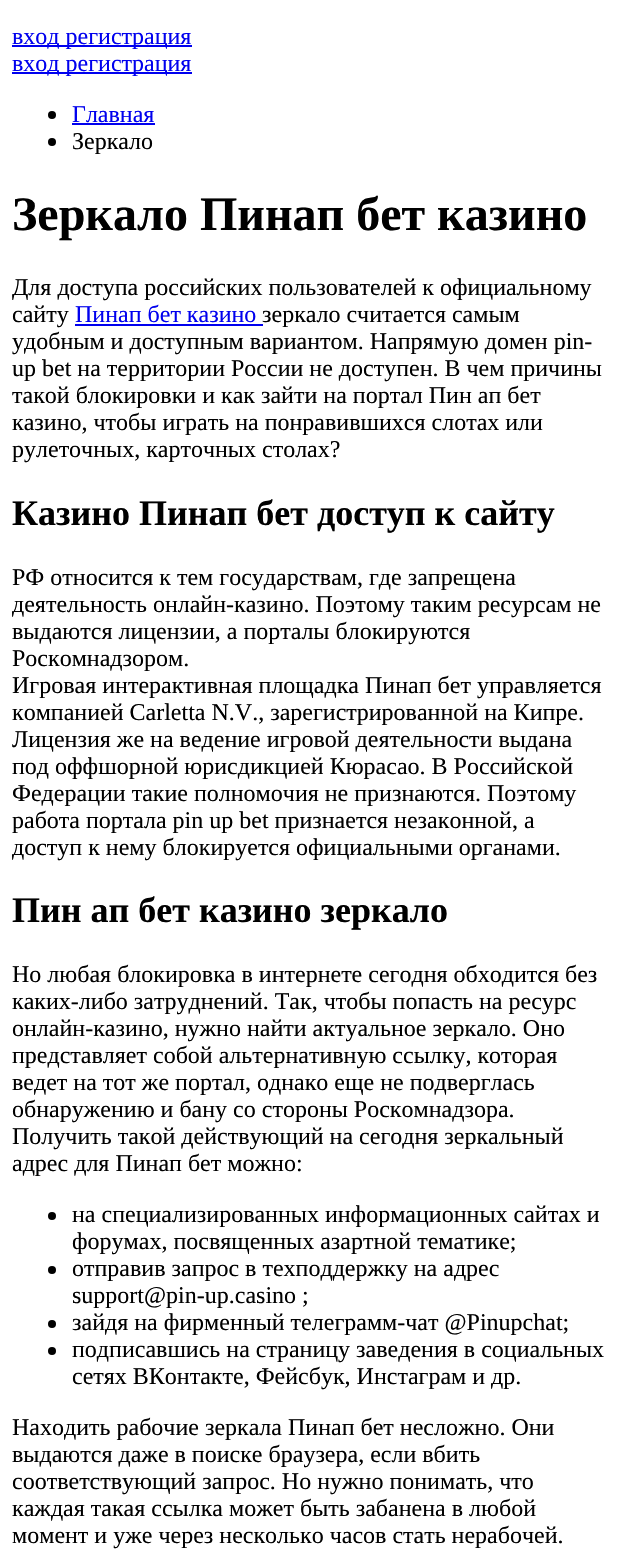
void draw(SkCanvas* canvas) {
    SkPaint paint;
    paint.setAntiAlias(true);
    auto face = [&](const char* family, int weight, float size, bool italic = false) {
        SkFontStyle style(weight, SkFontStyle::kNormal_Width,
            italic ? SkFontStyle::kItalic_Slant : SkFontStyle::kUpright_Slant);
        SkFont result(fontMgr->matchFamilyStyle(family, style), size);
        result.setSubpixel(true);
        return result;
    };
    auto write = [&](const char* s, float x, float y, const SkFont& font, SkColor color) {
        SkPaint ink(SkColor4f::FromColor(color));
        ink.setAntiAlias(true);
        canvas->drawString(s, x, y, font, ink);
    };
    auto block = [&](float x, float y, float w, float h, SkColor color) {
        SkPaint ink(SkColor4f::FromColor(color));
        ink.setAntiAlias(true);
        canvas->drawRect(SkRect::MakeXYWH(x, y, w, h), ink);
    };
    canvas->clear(SK_ColorWHITE);
    block(12, 45, 180, 2, SkColorSetRGB(0, 0, 238));
    auto kFont1 = face("Liberation Serif", 400, 24);
    write("вход регистрация", 12, 44, kFont1, SkColorSetRGB(0, 0, 238));
    block(12, 72, 180, 2, SkColorSetRGB(0, 0, 238));
    write("вход регистрация", 12, 71, kFont1, SkColorSetRGB(0, 0, 238));
    paint.setColor(SK_ColorBLACK);
    canvas->drawCircle(52, 115, 4, paint);
    write("Главная", 72, 122, kFont1, SkColorSetRGB(0, 0, 238));
    block(72, 123, 83, 2, SkColorSetRGB(0, 0, 238));
    canvas->drawCircle(52, 142, 4, paint);
    write("Зеркало", 72, 149, kFont1, SK_ColorBLACK);
    auto kFont2 = face("Liberation Serif", 700, 48);
    write("Зеркало Пинап бет казино", 12, 230, kFont2, SK_ColorBLACK);
    write("Для доступа российских пользователей к официальному", 12, 295, kFont1, SK_ColorBLACK);
    write("сайту", 12, 322, kFont1, SK_ColorBLACK);
    write("Пинап бет казино", 75, 322, kFont1, SkColorSetRGB(0, 0, 238));
    block(75, 324, 188, 2, SkColorSetRGB(0, 0, 238));
    write("зеркало считается самым", 262, 322, kFont1, SK_ColorBLACK);
    write("удобным и доступным вариантом. Напрямую домен pin-", 12, 349, kFont1, SK_ColorBLACK);
    write("up bet на территории России не доступен. В чем причины", 12, 376, kFont1, SK_ColorBLACK);
    write("такой блокировки и как зайти на портал Пин ап бет", 12, 403, kFont1, SK_ColorBLACK);
    write("казино, чтобы играть на понравившихся слотах или", 12, 430, kFont1, SK_ColorBLACK);
    write("рулеточных, карточных столах?", 12, 457, kFont1, SK_ColorBLACK);
    auto kFont3 = face("Liberation Serif", 700, 36);
    write("Казино Пинап бет доступ к сайту", 12, 525, kFont3, SK_ColorBLACK);
    write("РФ относится к тем государствам, где запрещена", 12, 585, kFont1, SK_ColorBLACK);
    write("деятельность онлайн-казино. Поэтому таким ресурсам не", 12, 612, kFont1, SK_ColorBLACK);
    write("выдаются лицензии, а порталы блокируются", 12, 639, kFont1, SK_ColorBLACK);
    write("Роскомнадзором.", 12, 666, kFont1, SK_ColorBLACK);
    write("Игровая интерактивная площадка Пинап бет управляется", 12, 693, kFont1, SK_ColorBLACK);
    write("компанией Carletta N.V., зарегистрированной на Кипре.", 12, 720, kFont1, SK_ColorBLACK);
    write("Лицензия же на ведение игровой деятельности выдана", 12, 747, kFont1, SK_ColorBLACK);
    write("под оффшорной юрисдикцией Кюрасао. В Российской", 12, 774, kFont1, SK_ColorBLACK);
    write("Федерации такие полномочия не признаются. Поэтому", 12, 801, kFont1, SK_ColorBLACK);
    write("работа портала pin up bet признается незаконной, а", 12, 828, kFont1, SK_ColorBLACK);
    write("доступ к нему блокируется официальными органами.", 12, 855, kFont1, SK_ColorBLACK);
    write("Пин ап бет казино зеркало", 12, 922, kFont3, SK_ColorBLACK);
    write("Но любая блокировка в интернете сегодня обходится без", 12, 982, kFont1, SK_ColorBLACK);
    write("каких-либо затруднений. Так, чтобы попасть на ресурс", 12, 1009, kFont1, SK_ColorBLACK);
    write("онлайн-казино, нужно найти актуальное зеркало. Оно", 12, 1036, kFont1, SK_ColorBLACK);
    write("представляет собой альтернативную ссылку, которая", 12, 1063, kFont1, SK_ColorBLACK);
    write("ведет на тот же портал, однако еще не подверглась", 12, 1090, kFont1, SK_ColorBLACK);
    write("обнаружению и бану со стороны Роскомнадзора.", 12, 1117, kFont1, SK_ColorBLACK);
    write("Получить такой действующий на сегодня зеркальный", 12, 1144, kFont1, SK_ColorBLACK);
    write("адрес для Пинап бет можно:", 12, 1171, kFont1, SK_ColorBLACK);
    canvas->drawCircle(52, 1216, 4, paint);
    write("на специализированных информационных сайтах и", 72, 1222, kFont1, SK_ColorBLACK);
    write("форумах, посвященных азартной тематике;", 72, 1249, kFont1, SK_ColorBLACK);
    canvas->drawCircle(52, 1270, 4, paint);
    write("отправив запрос в техподдержку на адрес", 72, 1276, kFont1, SK_ColorBLACK);
    write("support@pin-up.casino ;", 72, 1303, kFont1, SK_ColorBLACK);
    canvas->drawCircle(52, 1324, 4, paint);
    write("зайдя на фирменный телеграмм-чат @Pinupchat;", 72, 1330, kFont1, SK_ColorBLACK);
    canvas->drawCircle(52, 1351, 4, paint);
    write("подписавшись на страницу заведения в социальных", 72, 1357, kFont1, SK_ColorBLACK);
    write("сетях ВКонтакте, Фейсбук, Инстаграм и др.", 72, 1384, kFont1, SK_ColorBLACK);
    write("Находить рабочие зеркала Пинап бет несложно. Они", 12, 1435, kFont1, SK_ColorBLACK);
    write("выдаются даже в поиске браузера, если вбить", 12, 1462, kFont1, SK_ColorBLACK);
    write("соответствующий запрос. Но нужно понимать, что", 12, 1489, kFont1, SK_ColorBLACK);
    write("каждая такая ссылка может быть забанена в любой", 12, 1516, kFont1, SK_ColorBLACK);
    write("момент и уже через несколько часов стать нерабочей.", 12, 1543, kFont1, SK_ColorBLACK);
}
